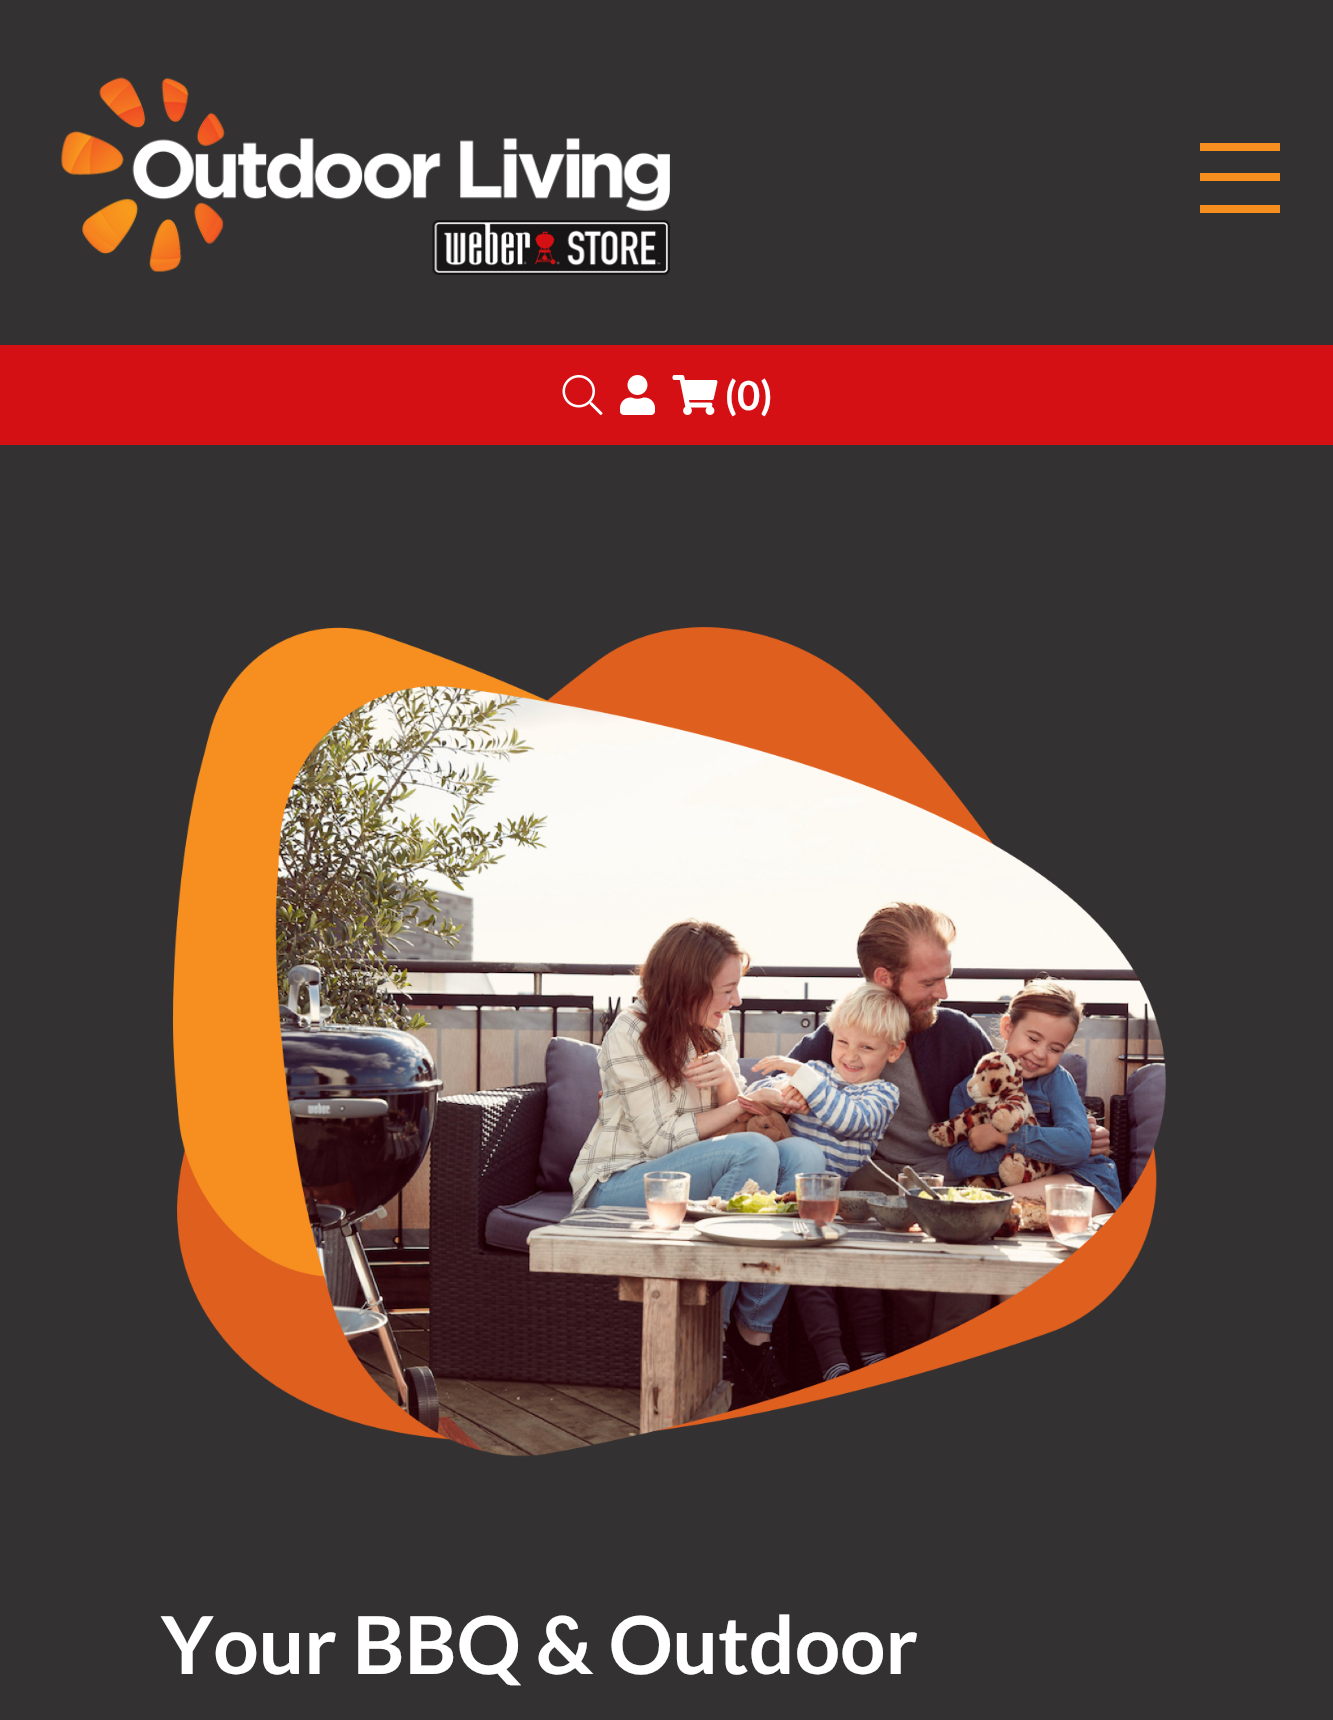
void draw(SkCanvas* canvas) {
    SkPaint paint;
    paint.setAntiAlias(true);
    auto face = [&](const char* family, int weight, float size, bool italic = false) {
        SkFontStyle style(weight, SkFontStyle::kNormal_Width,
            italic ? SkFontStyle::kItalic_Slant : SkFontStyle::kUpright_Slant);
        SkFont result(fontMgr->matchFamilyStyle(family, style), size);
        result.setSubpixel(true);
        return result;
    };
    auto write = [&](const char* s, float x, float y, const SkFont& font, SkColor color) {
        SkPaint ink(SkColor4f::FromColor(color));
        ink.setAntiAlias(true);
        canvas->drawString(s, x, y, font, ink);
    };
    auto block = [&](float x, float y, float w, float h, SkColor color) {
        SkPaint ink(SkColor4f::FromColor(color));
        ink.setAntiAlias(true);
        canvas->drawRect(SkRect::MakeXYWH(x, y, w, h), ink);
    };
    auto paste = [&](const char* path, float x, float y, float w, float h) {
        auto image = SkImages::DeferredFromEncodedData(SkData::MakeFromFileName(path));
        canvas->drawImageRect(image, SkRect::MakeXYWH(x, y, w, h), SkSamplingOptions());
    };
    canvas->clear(SkColorSetRGB(51, 49, 50));
    paste("pic1.png", 61, 77, 609, 195);
    paste("pic2.png", 432, 220, 238, 55);
    block(1200, 143, 80, 8, SkColorSetRGB(246, 143, 32));
    block(1200, 173, 80, 8, SkColorSetRGB(246, 143, 32));
    block(1200, 205, 80, 8, SkColorSetRGB(246, 143, 32));
    block(0, 345, 1333, 100, SkColorSetRGB(213, 16, 20));
    paste("pic3.png", 562, 375, 41, 40);
    paste("pic4.png", 620, 375, 35, 40);
    paste("pic5.png", 672, 375, 46, 40);
    auto kFont1 = face("Lato", 700, 40);
    write("(0)", 725, 410, kFont1, SK_ColorWHITE);
    paste("pic6.png", 173, 627, 993, 830);
    auto kFont2 = face("Lato", 700, 80);
    write("Your BBQ & Outdoor", 161, 1674, kFont2, SK_ColorWHITE);
}
